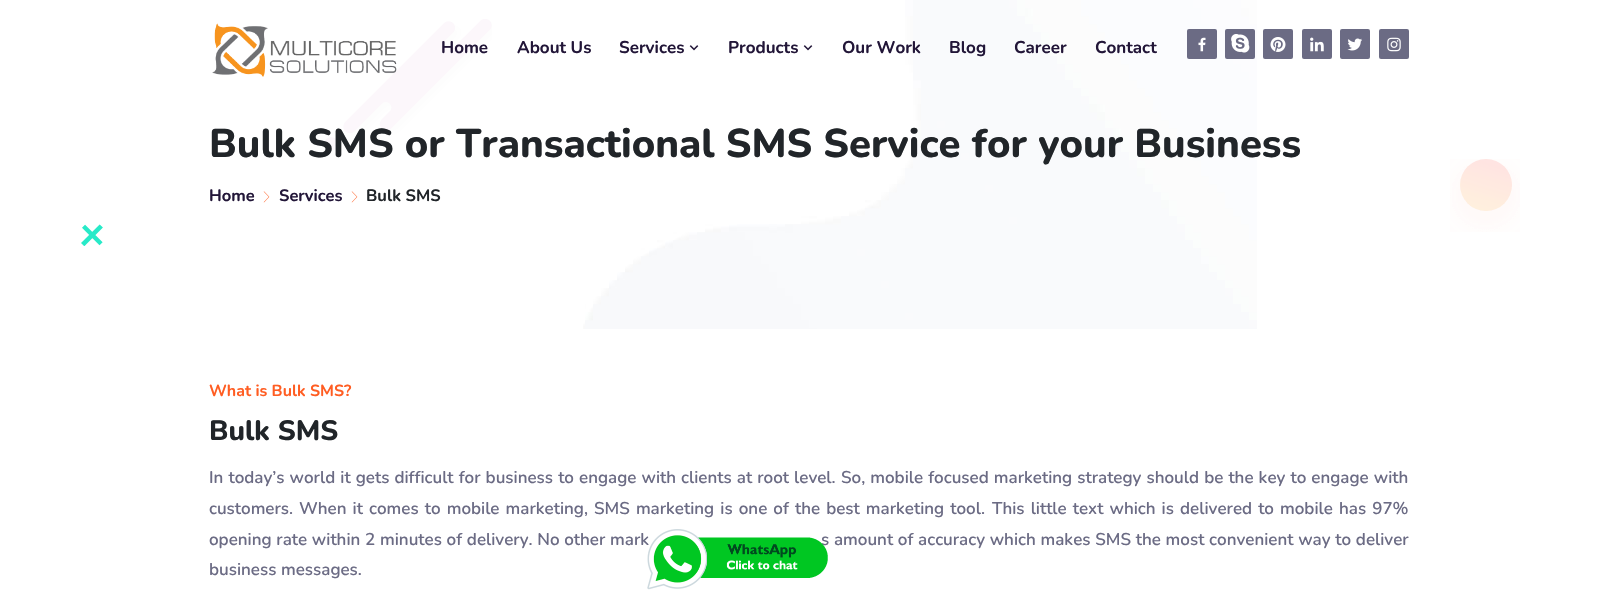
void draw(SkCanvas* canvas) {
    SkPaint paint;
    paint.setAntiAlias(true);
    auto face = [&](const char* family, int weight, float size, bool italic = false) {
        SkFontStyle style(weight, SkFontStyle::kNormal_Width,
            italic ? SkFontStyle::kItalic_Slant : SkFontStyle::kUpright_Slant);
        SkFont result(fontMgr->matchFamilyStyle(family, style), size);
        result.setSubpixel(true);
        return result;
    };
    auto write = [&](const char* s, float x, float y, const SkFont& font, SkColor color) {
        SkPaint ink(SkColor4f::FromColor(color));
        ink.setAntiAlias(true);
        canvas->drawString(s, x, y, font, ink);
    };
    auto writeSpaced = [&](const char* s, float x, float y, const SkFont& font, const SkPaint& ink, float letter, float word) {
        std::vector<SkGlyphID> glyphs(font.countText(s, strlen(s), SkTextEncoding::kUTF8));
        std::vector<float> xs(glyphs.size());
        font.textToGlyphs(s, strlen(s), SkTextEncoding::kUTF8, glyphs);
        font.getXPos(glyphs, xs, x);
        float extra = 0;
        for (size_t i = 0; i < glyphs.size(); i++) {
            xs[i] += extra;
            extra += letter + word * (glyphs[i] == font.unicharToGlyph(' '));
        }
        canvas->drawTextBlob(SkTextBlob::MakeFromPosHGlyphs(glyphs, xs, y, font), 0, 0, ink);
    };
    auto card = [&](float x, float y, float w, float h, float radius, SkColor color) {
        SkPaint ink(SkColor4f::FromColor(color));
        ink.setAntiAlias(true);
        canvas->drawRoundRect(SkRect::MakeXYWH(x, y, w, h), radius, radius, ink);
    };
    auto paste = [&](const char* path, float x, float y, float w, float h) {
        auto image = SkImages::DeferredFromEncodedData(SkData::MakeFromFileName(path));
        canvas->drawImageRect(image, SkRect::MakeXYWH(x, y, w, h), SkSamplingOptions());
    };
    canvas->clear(SK_ColorWHITE);
    paste("pic10.png", 325, 19, 167, 131);
    paste("pic1.png", 212, 23, 185, 54);
    auto kFont1 = face("Nunito", 700, 17);
    write("Home", 441, 53, kFont1, SkColorSetRGB(34, 22, 56));
    paste("pic9.png", 583, 0, 674, 329);
    write("About Us", 517, 53, kFont1, SkColorSetRGB(34, 22, 56));
    write("Services", 619, 53, kFont1, SkColorSetRGB(34, 22, 56));
    paste("pic2.png", 689, 45, 10, 6);
    write("Products", 728, 53, kFont1, SkColorSetRGB(34, 22, 56));
    paste("pic2.png", 803, 45, 10, 6);
    write("Our Work", 842, 53, kFont1, SkColorSetRGB(34, 22, 56));
    write("Blog", 949, 53, kFont1, SkColorSetRGB(34, 22, 56));
    write("Career", 1014, 53, kFont1, SkColorSetRGB(34, 22, 56));
    write("Contact", 1095, 53, kFont1, SkColorSetRGB(34, 22, 56));
    card(1187, 29, 30, 30, 2, SkColorSetRGB(107, 107, 132));
    paste("pic3.png", 1198, 37, 8, 15);
    card(1225, 29, 30, 30, 2, SkColorSetRGB(107, 107, 132));
    paste("pic4.png", 1231, 34, 19, 19);
    card(1263, 29, 30, 30, 2, SkColorSetRGB(107, 107, 132));
    paste("pic5.png", 1270, 37, 16, 15);
    card(1302, 29, 30, 30, 2, SkColorSetRGB(107, 107, 132));
    paste("pic6.png", 1310, 37, 14, 15);
    card(1340, 29, 30, 30, 2, SkColorSetRGB(107, 107, 132));
    paste("pic7.png", 1347, 38, 15, 13);
    card(1379, 29, 30, 30, 2, SkColorSetRGB(107, 107, 132));
    paste("pic8.png", 1387, 37, 14, 15);
    auto kFont2 = face("Nunito", 800, 40);
    write("Bulk SMS or Transactional SMS Service for your Business", 209, 157, kFont2, SkColorSetRGB(33, 37, 41));
    auto kFont3 = face("Nunito", 700, 16.5f);
    write("Home", 209, 201, kFont3, SkColorSetRGB(34, 22, 56));
    paste("pic11.png", 263, 191, 7, 12);
    write("Services", 279, 201, kFont3, SkColorSetRGB(34, 22, 56));
    paste("pic11.png", 351, 191, 7, 12);
    write("Bulk SMS", 366, 201, kFont3, SkColorSetRGB(33, 37, 41));
    paste("pic12.png", 1450, 159, 70, 73);
    paste("pic13.png", 81, 224, 22, 22);
    auto kFont4 = face("Nunito", 700, 16);
    write("What is Bulk SMS?", 209, 396, kFont4, SkColorSetRGB(255, 93, 34));
    auto kFont5 = face("Nunito", 800, 28);
    write("Bulk SMS", 209, 440, kFont5, SkColorSetRGB(33, 37, 41));
    auto kFont6 = face("Nunito", 600, 17);
    paint.setColor(SkColorSetRGB(107, 107, 132));
    writeSpaced("In today’s world it gets difficult for business to engage with clients at root level.", 209, 483, kFont6, paint, 0, 0.6f);
    writeSpaced("So, mobile focused marketing strategy should be the key to engage with", 841, 483, kFont6, paint, 0, 0.6f);
    write("customers.", 209, 514, kFont6, SkColorSetRGB(107, 107, 132));
    writeSpaced("When it comes to mobile marketing, SMS marketing is one of the best marketing tool.", 299, 514, kFont6, paint, 0, 1.6f);
    writeSpaced("This little text which is delivered to mobile has 97%", 992, 514, kFont6, paint, 0, 1.6f);
    writeSpaced("opening rate within 2 minutes of delivery. No other mark", 209, 545, kFont6, paint, 0, 0.25f);
    writeSpaced("s amount of accuracy which makes SMS the most convenient way to deliver", 821, 545, kFont6, paint, 0, 0.25f);
    write("business messages.", 209, 575, kFont6, SkColorSetRGB(107, 107, 132));
    paste("pic14.png", 647, 529, 181, 61);
}
